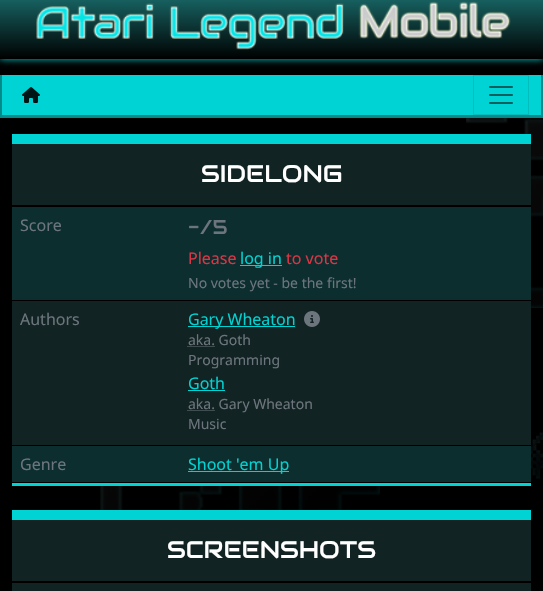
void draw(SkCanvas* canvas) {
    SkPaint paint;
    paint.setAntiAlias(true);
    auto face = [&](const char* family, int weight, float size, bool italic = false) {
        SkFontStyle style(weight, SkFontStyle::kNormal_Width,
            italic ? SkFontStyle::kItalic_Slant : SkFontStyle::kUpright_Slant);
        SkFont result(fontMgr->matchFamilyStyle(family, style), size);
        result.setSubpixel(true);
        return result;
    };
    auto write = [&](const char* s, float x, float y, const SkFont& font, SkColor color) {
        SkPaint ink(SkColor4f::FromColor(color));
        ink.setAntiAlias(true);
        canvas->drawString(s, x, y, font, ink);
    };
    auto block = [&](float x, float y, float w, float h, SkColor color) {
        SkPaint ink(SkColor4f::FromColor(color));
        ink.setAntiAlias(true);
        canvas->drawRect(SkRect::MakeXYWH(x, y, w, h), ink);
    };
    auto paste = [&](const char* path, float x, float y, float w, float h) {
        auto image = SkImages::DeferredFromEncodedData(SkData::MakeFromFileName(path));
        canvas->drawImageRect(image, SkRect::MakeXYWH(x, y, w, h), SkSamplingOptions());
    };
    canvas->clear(SK_ColorBLACK);
    paste("pic1.png", 100, 118, 443, 392);
    paint.setColor(SkColorSetRGB(0, 211, 211));
    paint.setMaskFilter(SkMaskFilter::MakeBlur(kNormal_SkBlurStyle, 3.5f));
    canvas->drawRect(SkRect::MakeXYWH(0, 0, 543, 59), paint);
    paint.setMaskFilter(nullptr);
    {
        const SkColor colors[] = {SkColorSetRGB(23, 95, 95), SK_ColorBLACK};
        const float stops[] = {0, 1};
        const SkPoint ends[] = {{272, 0}, {272, 59}};
        paint.setShader(SkGradientShader::MakeLinear(ends, colors, stops, 2, SkTileMode::kClamp));
        paint.setAlpha(255);
    }
    canvas->drawRect(SkRect::MakeXYWH(0, 0, 543, 59), paint);
    paste("pic2.png", 36, 1, 475, 49);
    block(2, 75, 539, 40, SkColorSetRGB(0, 211, 211));
    block(541, 75, 2, 43, SkColorSetRGB(0, 139, 139));
    block(0, 115, 543, 3, SkColorSetRGB(0, 139, 139));
    block(0, 75, 2, 43, SkColorSetRGB(0, 139, 139));
    paste("pic3.png", 22, 87, 18, 16);
    paint.setStyle(SkPaint::kStroke_Style);
    paint.setStrokeWidth(1);
    paint.setShader(nullptr);
    paint.setColor(SkColorSetRGB(0, 190, 190));
    canvas->drawRect(SkRect::MakeXYWH(473.5f, 75.5f, 55, 39), paint);
    paste("pic4.png", 489, 86, 24, 18);
    block(12, 144, 519, 301, SkColorSetRGB(18, 35, 35));
    block(12, 134, 519, 10, SkColorSetRGB(0, 211, 211));
    block(12, 483, 519, 3, SkColorSetRGB(0, 211, 211));
    block(12, 205, 519, 2, SK_ColorBLACK);
    auto kFont1 = face("Audiowide", 400, 24);
    write("SIDELONG", 201, 182, kFont1, SK_ColorWHITE);
    block(12, 207, 519, 93, SkColorSetRGB(13, 46, 46));
    block(12, 300, 519, 1, SK_ColorBLACK);
    auto kFont2 = face("Noto Sans", 400, 16);
    write("Score", 20, 231, kFont2, SkColorSetRGB(108, 117, 125));
    auto kFont3 = face("Audiowide", 400, 20);
    write("-/5", 188, 234, kFont3, SkColorSetRGB(108, 117, 125));
    write("Please", 188, 264, kFont2, SkColorSetRGB(220, 53, 69));
    block(240, 265, 42, 1, SkColorSetRGB(0, 211, 211));
    write("log in", 240, 264, kFont2, SkColorSetRGB(0, 211, 211));
    write("to vote", 286, 264, kFont2, SkColorSetRGB(220, 53, 69));
    auto kFont4 = face("Noto Sans", 400, 14);
    write("No votes yet - be the first!", 188, 288, kFont4, SkColorSetRGB(108, 117, 125));
    block(118, 445, 413, 1, SK_ColorBLACK);
    write("Authors", 20, 325, kFont2, SkColorSetRGB(108, 117, 125));
    block(188, 326, 107, 1, SkColorSetRGB(0, 211, 211));
    write("Gary Wheaton", 188, 325, kFont2, SkColorSetRGB(0, 211, 211));
    paste("pic5.png", 304, 311, 16, 16);
    write("aka. Goth", 188, 345, kFont4, SkColorSetRGB(108, 117, 125));
    paint.setColor(SkColorSetRGB(108, 117, 125));
    paint.setPathEffect(SkDashPathEffect::Make({{1, 1}}, 0));
    canvas->drawPath(SkPathBuilder().moveTo(187.5f, 346.5f).lineTo(214.5f, 346.5f).detach(), paint);
    paint.setPathEffect(nullptr);
    write("Programming", 188, 365, kFont4, SkColorSetRGB(108, 117, 125));
    write("Goth", 188, 389, kFont2, SkColorSetRGB(0, 211, 211));
    block(188, 390, 37, 1, SkColorSetRGB(0, 211, 211));
    paint.setPathEffect(SkDashPathEffect::Make({{1, 1}}, 0));
    canvas->drawPath(SkPathBuilder().moveTo(187.5f, 410.5f).lineTo(214.5f, 410.5f).detach(), paint);
    paint.setPathEffect(nullptr);
    write("aka. Gary Wheaton", 188, 409, kFont4, SkColorSetRGB(108, 117, 125));
    write("Music", 188, 429, kFont4, SkColorSetRGB(108, 117, 125));
    block(12, 446, 519, 36, SkColorSetRGB(13, 46, 46));
    block(100, 482, 280, 1, SK_ColorBLACK);
    write("Genre", 20, 470, kFont2, SkColorSetRGB(108, 117, 125));
    block(188, 471, 101, 1, SkColorSetRGB(0, 211, 211));
    write("Shoot 'em Up", 188, 470, kFont2, SkColorSetRGB(0, 211, 211));
    block(12, 520, 519, 71, SkColorSetRGB(18, 35, 35));
    block(12, 510, 519, 10, SkColorSetRGB(0, 211, 211));
    block(12, 581, 519, 2, SK_ColorBLACK);
    write("SCREENSHOTS", 167, 558, kFont1, SK_ColorWHITE);
}
